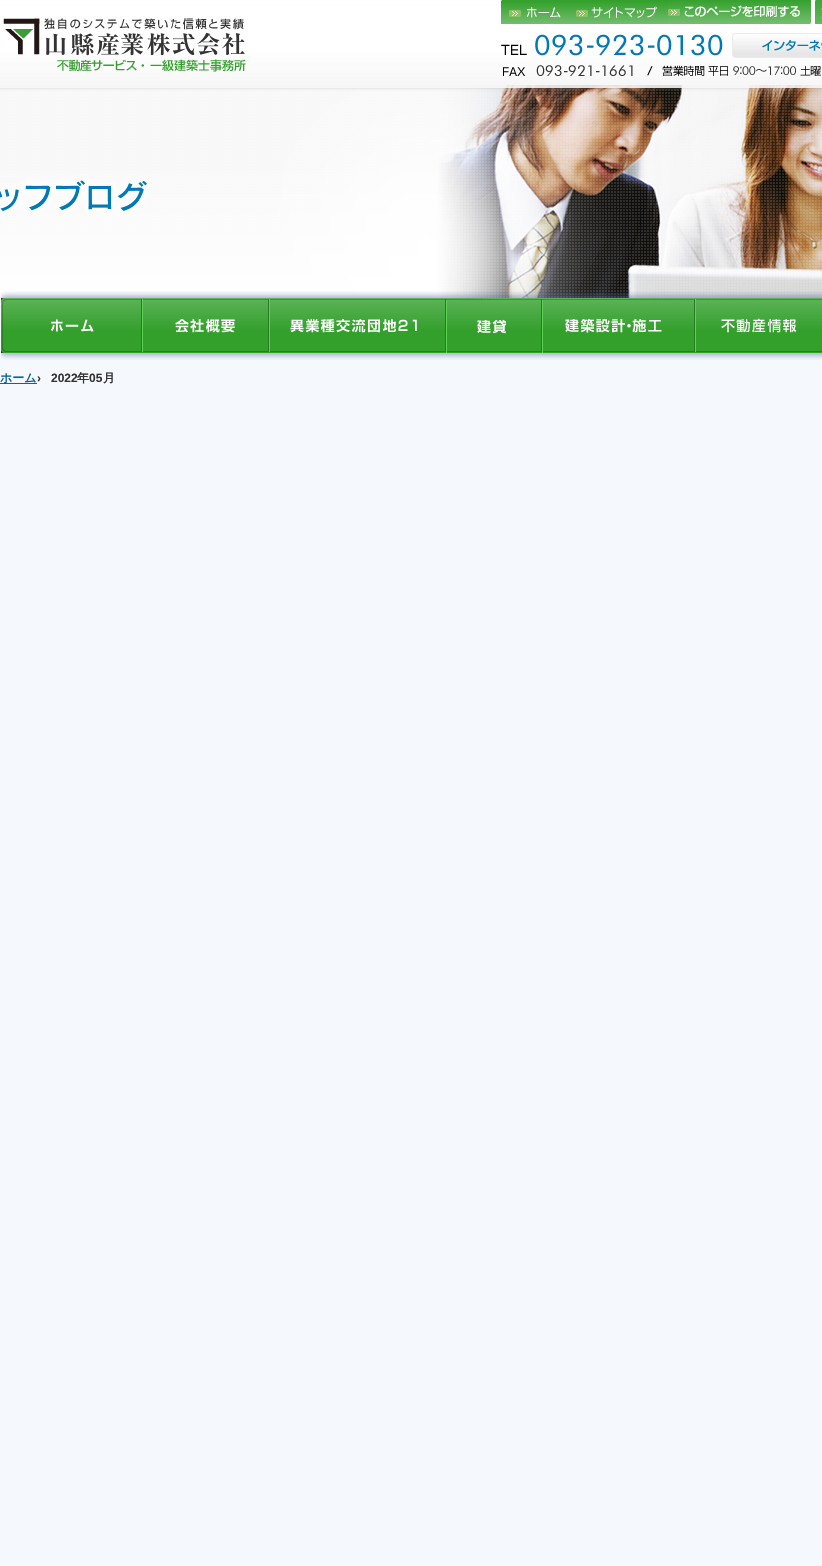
void draw(SkCanvas* canvas) {
    SkPaint paint;
    paint.setAntiAlias(true);
    auto face = [&](const char* family, int weight, float size, bool italic = false) {
        SkFontStyle style(weight, SkFontStyle::kNormal_Width,
            italic ? SkFontStyle::kItalic_Slant : SkFontStyle::kUpright_Slant);
        SkFont result(fontMgr->matchFamilyStyle(family, style), size);
        result.setSubpixel(true);
        return result;
    };
    auto write = [&](const char* s, float x, float y, const SkFont& font, SkColor color) {
        SkPaint ink(SkColor4f::FromColor(color));
        ink.setAntiAlias(true);
        canvas->drawString(s, x, y, font, ink);
    };
    auto block = [&](float x, float y, float w, float h, SkColor color) {
        SkPaint ink(SkColor4f::FromColor(color));
        ink.setAntiAlias(true);
        canvas->drawRect(SkRect::MakeXYWH(x, y, w, h), ink);
    };
    auto paste = [&](const char* path, float x, float y, float w, float h) {
        auto image = SkImages::DeferredFromEncodedData(SkData::MakeFromFileName(path));
        canvas->drawImageRect(image, SkRect::MakeXYWH(x, y, w, h), SkSamplingOptions());
    };
    canvas->clear(SkColorSetRGB(245, 248, 253));
    paste("pic1.png", 0, 0, 822, 307);
    paste("pic2.png", 501, 0, 75, 24);
    paste("pic3.png", 576, 0, 92, 24);
    paste("pic4.png", 668, 0, 143, 24);
    paste("pic5.png", 815, 0, 7, 24);
    paste("pic6.png", 3, 18, 243, 54);
    paste("pic7.png", 501, 34, 222, 22);
    paste("pic8.png", 732, 33, 90, 25);
    paste("pic9.png", 503, 65, 318, 11);
    paste("pic10.png", 0, 85, 822, 220);
    paste("pic11.png", 1, 291, 821, 69);
    paste("pic12.png", 1, 298, 143, 55);
    paste("pic13.png", 144, 299, 127, 53);
    paste("pic14.png", 271, 352, 176, 1);
    paste("pic15.png", 271, 299, 176, 53);
    paste("pic16.png", 447, 352, 97, 1);
    paste("pic17.png", 447, 299, 97, 53);
    paste("pic18.png", 544, 299, 152, 54);
    paste("pic19.png", 544, 299, 150, 53);
    paste("pic20.png", 696, 299, 126, 53);
    block(0, 383, 37, 1, SkColorSetRGB(14, 100, 151));
    auto kFont1 = face("WenQuanYi Zen Hei", 700, 12);
    write("ホーム", 0, 382, kFont1, SkColorSetRGB(14, 100, 151));
    auto kFont2 = face("Liberation Sans", 700, 12);
    write("›", 37, 382, kFont2, SkColorSetRGB(51, 51, 51));
    write("2022", 51, 382, kFont2, SkColorSetRGB(51, 51, 51));
    write("年", 77, 382, kFont1, SkColorSetRGB(51, 51, 51));
    write("05", 89, 382, kFont2, SkColorSetRGB(51, 51, 51));
    write("月", 103, 382, kFont1, SkColorSetRGB(51, 51, 51));
}
